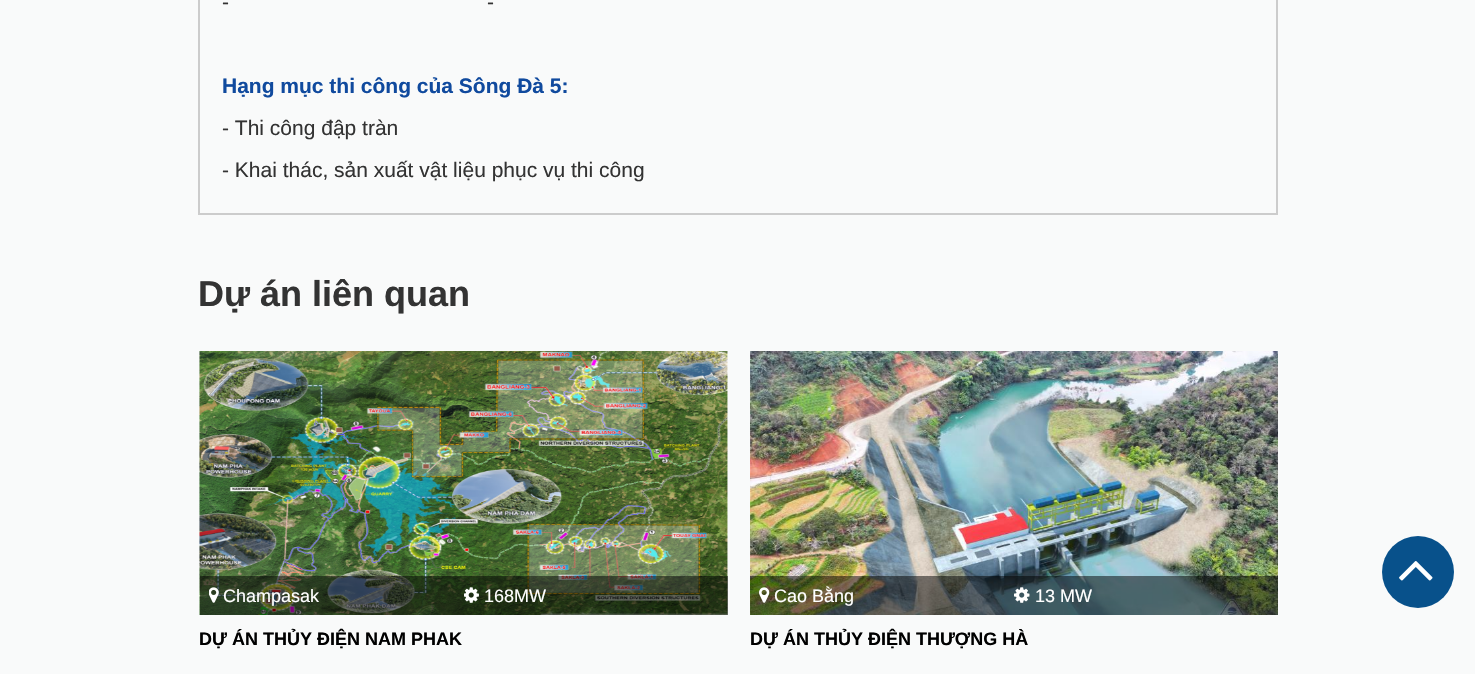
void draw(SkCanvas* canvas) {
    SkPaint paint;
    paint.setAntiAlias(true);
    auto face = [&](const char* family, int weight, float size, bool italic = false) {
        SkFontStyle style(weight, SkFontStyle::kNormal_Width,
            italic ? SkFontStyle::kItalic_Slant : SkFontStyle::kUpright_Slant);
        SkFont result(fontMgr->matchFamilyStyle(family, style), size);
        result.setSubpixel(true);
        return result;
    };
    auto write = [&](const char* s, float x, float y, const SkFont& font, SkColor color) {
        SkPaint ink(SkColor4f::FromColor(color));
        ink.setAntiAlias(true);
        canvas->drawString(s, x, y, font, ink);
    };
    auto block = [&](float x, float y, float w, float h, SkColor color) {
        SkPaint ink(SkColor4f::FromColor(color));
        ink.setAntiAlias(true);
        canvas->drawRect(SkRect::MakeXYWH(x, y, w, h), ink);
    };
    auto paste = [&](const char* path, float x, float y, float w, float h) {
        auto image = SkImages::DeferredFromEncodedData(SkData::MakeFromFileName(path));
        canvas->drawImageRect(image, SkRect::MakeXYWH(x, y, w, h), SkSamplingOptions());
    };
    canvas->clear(SkColorSetRGB(249, 250, 250));
    paint.setStyle(SkPaint::kStroke_Style);
    paint.setStrokeWidth(2);
    paint.setColor(SkColorSetRGB(204, 204, 204));
    canvas->drawRect(SkRect::MakeXYWH(199, -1, 1078, 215), paint);
    auto kFont1 = face("Liberation Sans", 400, 21);
    write("-", 222, 9, kFont1, SkColorSetRGB(51, 51, 51));
    write("-", 487, 9, kFont1, SkColorSetRGB(51, 51, 51));
    auto kFont2 = face("Liberation Sans", 700, 21);
    write("Hạng mục thi công của Sông Đà 5:", 222, 93, kFont2, SkColorSetRGB(16, 74, 158));
    write("- Thi công đập tràn", 222, 135, kFont1, SkColorSetRGB(51, 51, 51));
    write("- Khai thác, sản xuất vật liệu phục vụ thi công", 222, 177, kFont1, SkColorSetRGB(51, 51, 51));
    auto kFont3 = face("Liberation Sans", 700, 36);
    write("Dự án liên quan", 198, 306, kFont3, SkColorSetRGB(51, 51, 51));
    paste("pic1.png", 199, 351, 529, 264);
    block(200, 576, 528, 39, SkColorSetARGB(128, 0, 0, 0));
    paste("pic2.png", 209, 587, 10, 16);
    auto kFont4 = face("Liberation Sans", 400, 18);
    write("Champasak", 223, 602, kFont4, SK_ColorWHITE);
    paste("pic3.png", 464, 587, 15, 16);
    write("168MW", 484, 602, kFont4, SK_ColorWHITE);
    auto kFont5 = face("Liberation Sans", 700, 18);
    write("DỰ ÁN THỦY ĐIỆN NAM PHAK", 199, 645, kFont5, SK_ColorBLACK);
    paste("pic4.png", 750, 351, 528, 264);
    block(750, 576, 528, 39, SkColorSetARGB(128, 0, 0, 0));
    paste("pic5.png", 759, 587, 11, 16);
    write("Cao Bằng", 774, 602, kFont4, SK_ColorWHITE);
    paste("pic6.png", 1014, 587, 16, 16);
    write("13 MW", 1035, 602, kFont4, SK_ColorWHITE);
    write("DỰ ÁN THỦY ĐIỆN THƯỢNG HÀ", 750, 645, kFont5, SK_ColorBLACK);
    paint.setStyle(SkPaint::kFill_Style);
    paint.setColor(SkColorSetRGB(8, 81, 139));
    canvas->drawCircle(1418, 572, 36, paint);
    paste("pic7.png", 1399, 561, 34, 20);
}
